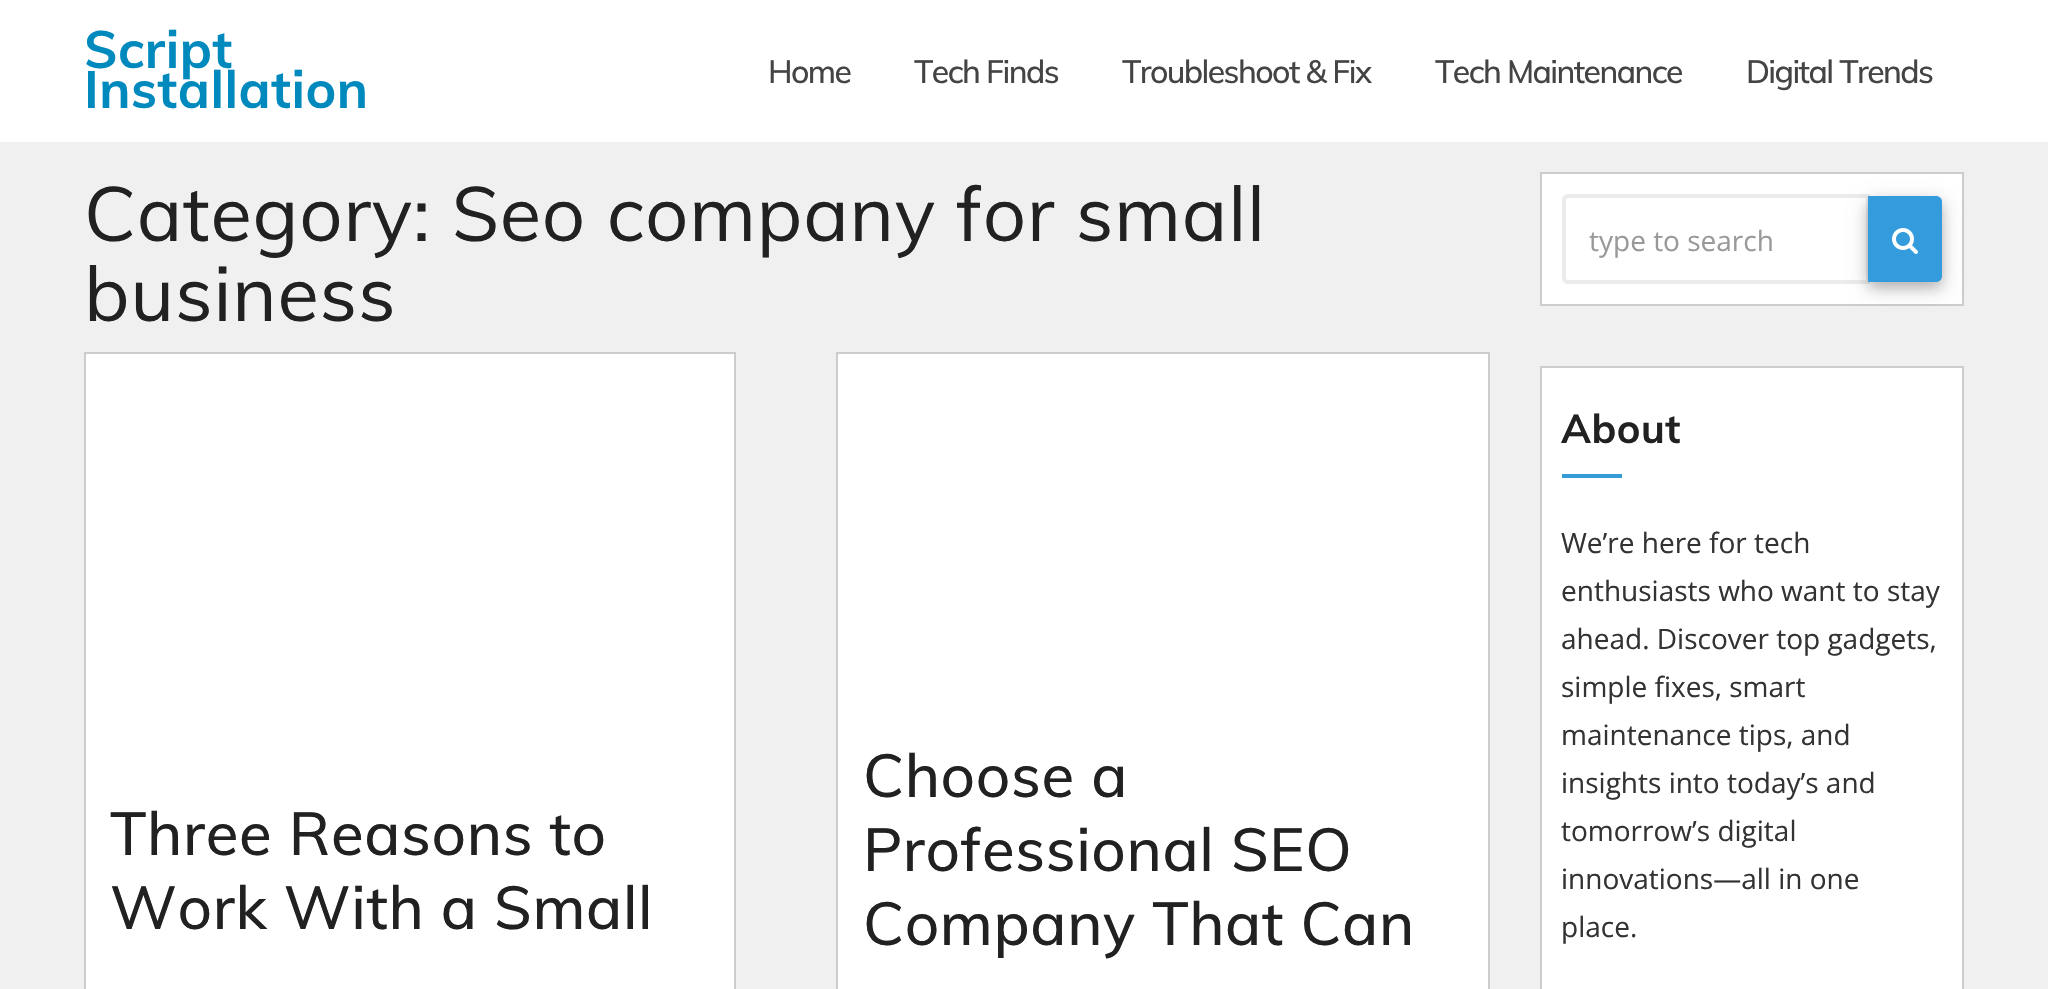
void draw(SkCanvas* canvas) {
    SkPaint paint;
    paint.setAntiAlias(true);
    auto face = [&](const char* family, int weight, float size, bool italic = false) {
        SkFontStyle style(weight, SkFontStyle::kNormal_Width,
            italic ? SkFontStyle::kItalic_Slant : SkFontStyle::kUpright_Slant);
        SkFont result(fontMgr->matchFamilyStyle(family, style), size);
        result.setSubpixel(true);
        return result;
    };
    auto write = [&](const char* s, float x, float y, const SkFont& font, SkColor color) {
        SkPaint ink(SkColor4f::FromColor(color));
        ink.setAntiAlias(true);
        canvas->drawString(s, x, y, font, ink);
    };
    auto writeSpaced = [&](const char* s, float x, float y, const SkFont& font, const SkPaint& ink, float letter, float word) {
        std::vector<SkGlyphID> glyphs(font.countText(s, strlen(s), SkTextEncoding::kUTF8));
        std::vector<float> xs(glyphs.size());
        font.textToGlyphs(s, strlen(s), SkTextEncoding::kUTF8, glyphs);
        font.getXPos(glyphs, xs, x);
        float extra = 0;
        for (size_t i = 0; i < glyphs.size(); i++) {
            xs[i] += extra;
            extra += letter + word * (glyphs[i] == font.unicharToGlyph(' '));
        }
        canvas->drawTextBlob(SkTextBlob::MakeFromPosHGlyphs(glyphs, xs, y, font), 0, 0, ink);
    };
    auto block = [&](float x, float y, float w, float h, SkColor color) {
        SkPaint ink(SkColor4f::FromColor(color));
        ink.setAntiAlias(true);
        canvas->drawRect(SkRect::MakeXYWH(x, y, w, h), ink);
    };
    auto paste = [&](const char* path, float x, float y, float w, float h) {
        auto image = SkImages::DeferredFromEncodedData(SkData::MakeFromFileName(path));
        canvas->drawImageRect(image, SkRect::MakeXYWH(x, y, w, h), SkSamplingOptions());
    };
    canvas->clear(SkColorSetRGB(240, 240, 240));
    block(0, 0, 2048, 142, SK_ColorWHITE);
    auto kFont1 = face("Muli", 700, 52);
    paint.setColor(SkColorSetRGB(0, 137, 189));
    writeSpaced("Script", 84, 68, kFont1, paint, 0.5f, 0);
    writeSpaced("Installation", 84, 108, kFont1, paint, 0.5f, 0);
    auto kFont2 = face("Muli", 500, 32);
    paint.setColor(SkColorSetRGB(68, 68, 68));
    writeSpaced("Home", 768, 83, kFont2, paint, -1.6f, 0);
    writeSpaced("Tech Finds", 914, 83, kFont2, paint, -1.6f, 0);
    writeSpaced("Troubleshoot & Fix", 1122, 83, kFont2, paint, -1.6f, 0);
    writeSpaced("Tech Maintenance", 1435, 83, kFont2, paint, -1.6f, 0);
    writeSpaced("Digital Trends", 1746, 83, kFont2, paint, -1.6f, 0);
    auto kFont3 = face("Muli", 400, 76);
    paint.setColor(SkColorSetRGB(33, 33, 33));
    writeSpaced("Category: Seo company for small", 84, 241, kFont3, paint, 0.75f, 0);
    writeSpaced("business", 84, 321, kFont3, paint, 0.75f, 0);
    paint.setColor(SK_ColorWHITE);
    canvas->drawRect(SkRect::MakeXYWH(85, 353, 650, 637), paint);
    paint.setStyle(SkPaint::kStroke_Style);
    paint.setStrokeWidth(2);
    paint.setColor(SkColorSetRGB(204, 204, 204));
    canvas->drawRect(SkRect::MakeXYWH(85, 353, 650, 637), paint);
    auto kFont4 = face("Muli", 500, 60);
    paint.setStyle(SkPaint::kFill_Style);
    paint.setColor(SkColorSetRGB(33, 33, 33));
    writeSpaced("Three Reasons to", 110, 855, kFont4, paint, 0.6f, 0);
    writeSpaced("Work With a Small", 110, 929, kFont4, paint, 0.6f, 0);
    paint.setColor(SK_ColorWHITE);
    canvas->drawRect(SkRect::MakeXYWH(837, 353, 652, 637), paint);
    paint.setStyle(SkPaint::kStroke_Style);
    paint.setColor(SkColorSetRGB(204, 204, 204));
    canvas->drawRect(SkRect::MakeXYWH(837, 353, 652, 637), paint);
    paint.setStyle(SkPaint::kFill_Style);
    paint.setColor(SkColorSetRGB(33, 33, 33));
    writeSpaced("Choose a", 863, 797, kFont4, paint, 0.6f, 0);
    writeSpaced("Professional SEO", 863, 871, kFont4, paint, 0.6f, 0);
    writeSpaced("Company That Can", 863, 945, kFont4, paint, 0.6f, 0);
    paint.setColor(SK_ColorWHITE);
    canvas->drawRect(SkRect::MakeXYWH(1541, 173, 422, 132), paint);
    paint.setStyle(SkPaint::kStroke_Style);
    paint.setColor(SkColorSetRGB(204, 204, 204));
    canvas->drawRect(SkRect::MakeXYWH(1541, 173, 422, 132), paint);
    paint.setStrokeWidth(4);
    paint.setColor(SkColorSetRGB(235, 235, 235));
    canvas->drawPath(SkPathBuilder().moveTo(1568, 196).lineTo(1868, 196).lineTo(1868, 282).lineTo(1568, 282).cubicTo(1566, 282, 1564, 280, 1564, 278).lineTo(1564, 200).cubicTo(1564, 198, 1566, 196, 1568, 196).close().detach(), paint);
    auto kFont5 = face("Open Sans", 400, 28);
    write("type to search", 1589, 251, kFont5, SkColorSetRGB(153, 153, 153));
    paint.setStyle(SkPaint::kFill_Style);
    paint.setColor(SkColorSetARGB(41, 0, 0, 0));
    paint.setMaskFilter(SkMaskFilter::MakeBlur(kNormal_SkBlurStyle, 6));
    canvas->drawRoundRect(SkRect::MakeXYWH(1868, 202, 74, 86), 6, 6, paint);
    paint.setMaskFilter(nullptr);
    paint.setColor(SkColorSetARGB(46, 0, 0, 0));
    paint.setMaskFilter(SkMaskFilter::MakeBlur(kNormal_SkBlurStyle, 10));
    canvas->drawRoundRect(SkRect::MakeXYWH(1868, 202, 74, 86), 6, 6, paint);
    paint.setMaskFilter(nullptr);
    paint.setColor(SkColorSetRGB(52, 155, 220));
    canvas->drawPath(SkPathBuilder().moveTo(1868, 196).lineTo(1936, 196).cubicTo(1939.5f, 196, 1942, 198.5f, 1942, 202).lineTo(1942, 276).cubicTo(1942, 279.5f, 1939.5f, 282, 1936, 282).lineTo(1868, 282).close().detach(), paint);
    paste("pic1.png", 1892, 228, 26, 26);
    paint.setColor(SK_ColorWHITE);
    canvas->drawRect(SkRect::MakeXYWH(1541, 367, 422, 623), paint);
    paint.setStyle(SkPaint::kStroke_Style);
    paint.setStrokeWidth(2);
    paint.setColor(SkColorSetRGB(204, 204, 204));
    canvas->drawRect(SkRect::MakeXYWH(1541, 367, 422, 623), paint);
    auto kFont6 = face("Muli", 700, 40);
    paint.setStyle(SkPaint::kFill_Style);
    paint.setColor(SkColorSetRGB(33, 33, 33));
    writeSpaced("About", 1561, 443, kFont6, paint, 0.5f, 0);
    block(1562, 474, 60, 4, SkColorSetRGB(52, 155, 214));
    write("We’re here for tech", 1561, 553, kFont5, SkColorSetRGB(51, 51, 51));
    write("enthusiasts who want to stay", 1561, 601, kFont5, SkColorSetRGB(51, 51, 51));
    write("ahead. Discover top gadgets,", 1561, 649, kFont5, SkColorSetRGB(51, 51, 51));
    write("simple fixes, smart", 1561, 697, kFont5, SkColorSetRGB(51, 51, 51));
    write("maintenance tips, and", 1561, 745, kFont5, SkColorSetRGB(51, 51, 51));
    write("insights into today’s and", 1561, 793, kFont5, SkColorSetRGB(51, 51, 51));
    write("tomorrow’s digital", 1561, 841, kFont5, SkColorSetRGB(51, 51, 51));
    write("innovations—all in one", 1561, 889, kFont5, SkColorSetRGB(51, 51, 51));
    write("place.", 1561, 937, kFont5, SkColorSetRGB(51, 51, 51));
}
